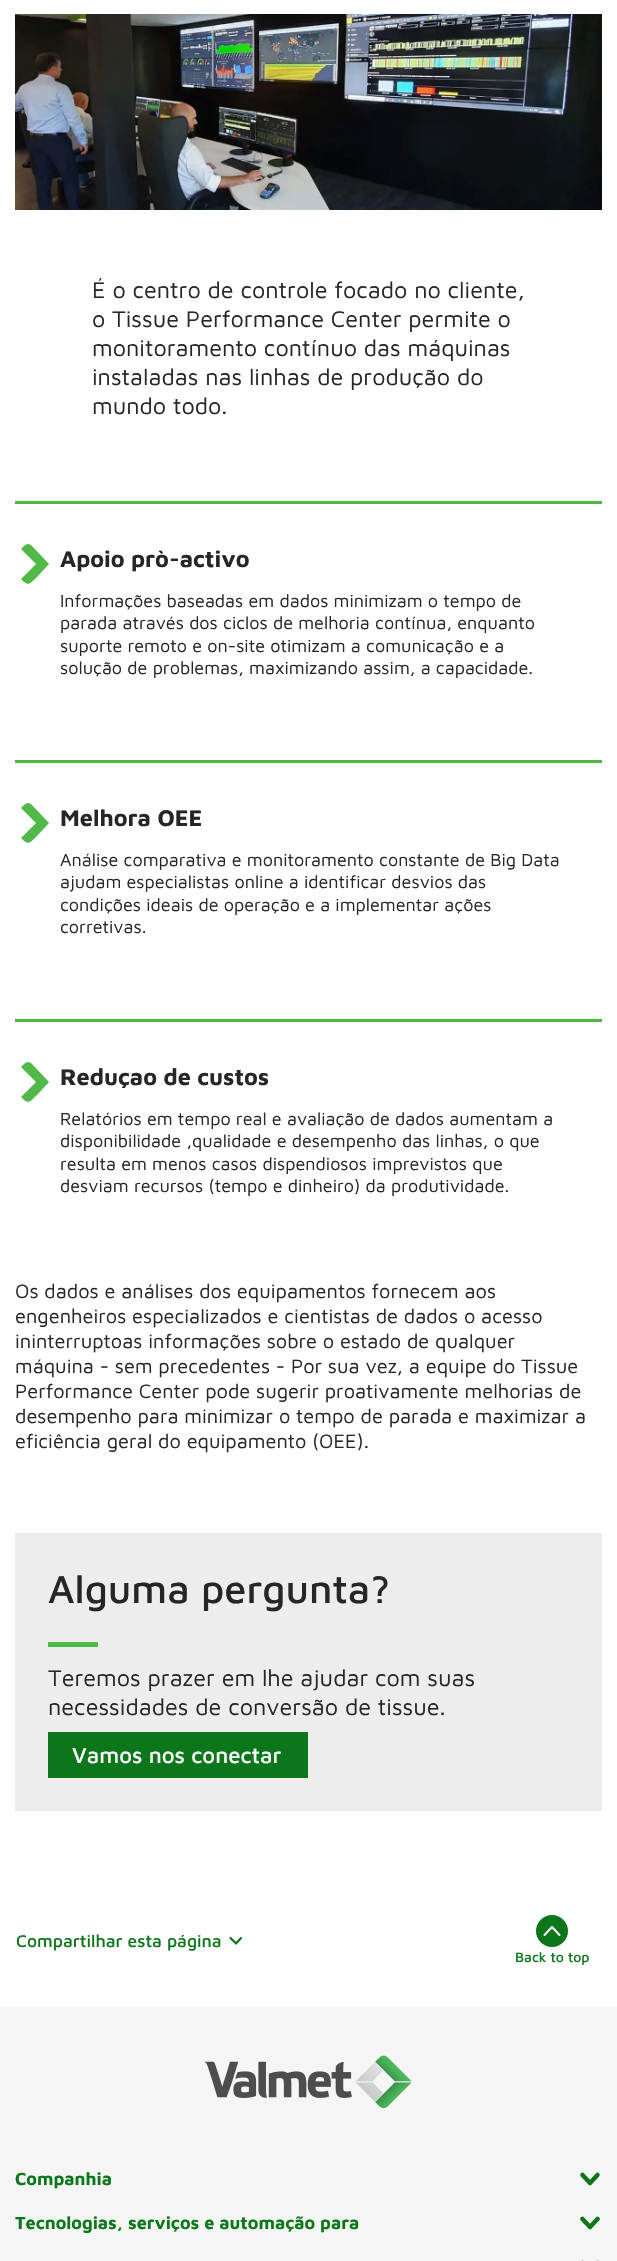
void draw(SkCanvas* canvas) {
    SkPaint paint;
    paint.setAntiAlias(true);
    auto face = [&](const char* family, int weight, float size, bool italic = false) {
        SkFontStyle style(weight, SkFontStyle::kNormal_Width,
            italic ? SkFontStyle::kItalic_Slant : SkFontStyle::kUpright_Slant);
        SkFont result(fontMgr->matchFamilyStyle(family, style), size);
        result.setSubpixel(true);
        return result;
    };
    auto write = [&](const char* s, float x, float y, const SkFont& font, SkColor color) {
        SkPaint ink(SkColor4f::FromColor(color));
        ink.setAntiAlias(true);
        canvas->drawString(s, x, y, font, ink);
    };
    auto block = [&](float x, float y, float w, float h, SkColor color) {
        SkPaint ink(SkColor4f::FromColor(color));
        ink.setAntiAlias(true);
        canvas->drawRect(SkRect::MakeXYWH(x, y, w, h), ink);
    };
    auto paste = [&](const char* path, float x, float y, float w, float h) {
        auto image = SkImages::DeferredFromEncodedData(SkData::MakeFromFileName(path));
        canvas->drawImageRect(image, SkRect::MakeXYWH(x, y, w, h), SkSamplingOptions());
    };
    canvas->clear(SK_ColorWHITE);
    paste("pic1.png", 15, 14, 587, 196);
    auto kFont1 = face("Maven Pro", 400, 23.4f);
    write("É o centro de controle focado no cliente,", 92, 298, kFont1, SkColorSetRGB(38, 38, 38));
    write("o Tissue Performance Center permite o", 92, 327, kFont1, SkColorSetRGB(38, 38, 38));
    write("monitoramento contínuo das máquinas", 92, 356, kFont1, SkColorSetRGB(38, 38, 38));
    write("instaladas nas linhas de produção do", 92, 385, kFont1, SkColorSetRGB(38, 38, 38));
    write("mundo todo.", 92, 414, kFont1, SkColorSetRGB(38, 38, 38));
    block(15, 501, 587, 3, SkColorSetRGB(80, 185, 72));
    paint.setColor(SkColorSetRGB(80, 185, 72));
    canvas->drawPath(SkPathBuilder(SkPathFillType::kEvenOdd).moveTo(31, 545).lineTo(49, 564).lineTo(36, 564).lineTo(21, 549).cubicTo(24, 546, 27, 542, 31, 545).close().moveTo(21, 579).lineTo(36, 564).lineTo(49, 564).lineTo(37, 577).cubicTo(29, 584, 29, 587, 21, 579).close().detach(), paint);
    auto kFont2 = face("Maven Pro", 700, 23.4f);
    write("Apoio prò-activo", 60, 567, kFont2, SkColorSetRGB(38, 38, 38));
    auto kFont3 = face("Maven Pro", 400, 18);
    write("Informações baseadas em dados minimizam o tempo de", 60, 607, kFont3, SkColorSetRGB(38, 38, 38));
    write("parada através dos ciclos de melhoria contínua, enquanto", 60, 629, kFont3, SkColorSetRGB(38, 38, 38));
    write("suporte remoto e on-site otimizam a comunicação e a", 60, 652, kFont3, SkColorSetRGB(38, 38, 38));
    write("solução de problemas, maximizando assim, a capacidade.", 60, 674, kFont3, SkColorSetRGB(38, 38, 38));
    block(15, 760, 587, 3, SkColorSetRGB(80, 185, 72));
    canvas->drawPath(SkPathBuilder(SkPathFillType::kEvenOdd).moveTo(31, 804).lineTo(49, 823).lineTo(36, 823).lineTo(21, 808).cubicTo(24, 805, 27, 801, 31, 804).close().moveTo(21, 838).lineTo(36, 823).lineTo(49, 823).lineTo(37, 836).cubicTo(29, 843, 29, 846, 21, 838).close().detach(), paint);
    write("Melhora OEE", 60, 826, kFont2, SkColorSetRGB(38, 38, 38));
    write("Análise comparativa e monitoramento constante de Big Data", 60, 866, kFont3, SkColorSetRGB(38, 38, 38));
    write("ajudam especialistas online a identificar desvios das", 60, 888, kFont3, SkColorSetRGB(38, 38, 38));
    write("condições ideais de operação e a implementar ações", 60, 911, kFont3, SkColorSetRGB(38, 38, 38));
    write("corretivas.", 60, 933, kFont3, SkColorSetRGB(38, 38, 38));
    block(15, 1019, 587, 3, SkColorSetRGB(80, 185, 72));
    canvas->drawPath(SkPathBuilder(SkPathFillType::kEvenOdd).moveTo(31, 1063).lineTo(49, 1082).lineTo(36, 1082).lineTo(21, 1067).cubicTo(24, 1064, 27, 1060, 31, 1063).close().moveTo(21, 1097).lineTo(36, 1082).lineTo(49, 1082).lineTo(37, 1095).cubicTo(29, 1102, 29, 1105, 21, 1097).close().detach(), paint);
    write("Reduçao de custos", 60, 1085, kFont2, SkColorSetRGB(38, 38, 38));
    write("Relatórios em tempo real e avaliação de dados aumentam a", 60, 1125, kFont3, SkColorSetRGB(38, 38, 38));
    write("disponibilidade ,qualidade e desempenho das linhas, o que", 60, 1147, kFont3, SkColorSetRGB(38, 38, 38));
    write("resulta em menos casos dispendiosos imprevistos que", 60, 1170, kFont3, SkColorSetRGB(38, 38, 38));
    write("desviam recursos (tempo e dinheiro) da produtividade.", 60, 1192, kFont3, SkColorSetRGB(38, 38, 38));
    auto kFont4 = face("Maven Pro", 400, 20);
    write("Os dados e análises dos equipamentos fornecem aos", 15, 1298, kFont4, SkColorSetRGB(38, 38, 38));
    write("engenheiros especializados e cientistas de dados o acesso", 15, 1323, kFont4, SkColorSetRGB(38, 38, 38));
    write("ininterrupto as informações sobre o estado de qualquer", 15, 1348, kFont4, SkColorSetRGB(38, 38, 38));
    write("máquina - sem precedentes -  Por sua vez, a equipe do Tissue", 15, 1373, kFont4, SkColorSetRGB(38, 38, 38));
    write("Performance Center pode sugerir proativamente melhorias de", 15, 1398, kFont4, SkColorSetRGB(38, 38, 38));
    write("desempenho para minimizar o tempo de parada e maximizar a", 15, 1423, kFont4, SkColorSetRGB(38, 38, 38));
    write("eficiência geral do equipamento (OEE).", 15, 1448, kFont4, SkColorSetRGB(38, 38, 38));
    block(15, 1533, 587, 278, SkColorSetRGB(237, 237, 237));
    auto kFont5 = face("Maven Pro", 500, 40);
    write("Alguma pergunta?", 48, 1603, kFont5, SkColorSetRGB(38, 38, 38));
    block(48, 1642, 50, 5, SkColorSetRGB(80, 185, 72));
    write("Teremos prazer em lhe ajudar com suas", 48, 1686, kFont1, SkColorSetRGB(38, 38, 38));
    write("necessidades de conversão de tissue.", 48, 1715, kFont1, SkColorSetRGB(38, 38, 38));
    block(48, 1732, 260, 46, SkColorSetRGB(11, 119, 26));
    auto kFont6 = face("Maven Pro", 500, 22.25f);
    write("Vamos nos conectar", 72, 1763, kFont6, SK_ColorWHITE);
    auto kFont7 = face("Maven Pro", 500, 17.5f);
    write("Compartilhar esta página", 16, 1947, kFont7, SkColorSetRGB(11, 119, 26));
    paint.setStyle(SkPaint::kStroke_Style);
    paint.setStrokeWidth(2.2f);
    paint.setStrokeCap(SkPaint::kRound_Cap);
    paint.setStrokeJoin(SkPaint::kRound_Join);
    paint.setColor(SkColorSetRGB(11, 119, 26));
    canvas->drawPath(SkPathBuilder().moveTo(241, 1938).lineTo(236, 1943.5f).lineTo(230.5f, 1938).detach(), paint);
    paint.setStyle(SkPaint::kFill_Style);
    canvas->drawCircle(552, 1931, 16, paint);
    paint.setStyle(SkPaint::kStroke_Style);
    paint.setStrokeWidth(2);
    paint.setColor(SK_ColorWHITE);
    canvas->drawPath(SkPathBuilder().moveTo(544.5f, 1935).lineTo(552, 1927).lineTo(559.5f, 1935).detach(), paint);
    auto kFont8 = face("Maven Pro", 500, 14);
    write("Back to top", 515, 1962, kFont8, SkColorSetRGB(11, 119, 26));
    block(0, 2007, 617, 254, SkColorSetRGB(245, 245, 245));
    paste("pic2.png", 204, 2055, 208, 54);
    auto kFont9 = face("Maven Pro", 700, 18);
    write("Companhia", 15, 2185, kFont9, SkColorSetRGB(11, 119, 26));
    paint.setStrokeWidth(4.5f);
    paint.setColor(SkColorSetRGB(11, 119, 26));
    canvas->drawPath(SkPathBuilder().moveTo(597.5f, 2175).lineTo(590, 2183).lineTo(582.5f, 2175).detach(), paint);
    write("Tecnologias, serviços e automação para", 15, 2229, kFont9, SkColorSetRGB(11, 119, 26));
    canvas->drawPath(SkPathBuilder().moveTo(597.5f, 2219).lineTo(590, 2227).lineTo(582.5f, 2219).moveTo(597.5f, 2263).lineTo(590, 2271).lineTo(582.5f, 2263).detach(), paint);
}
